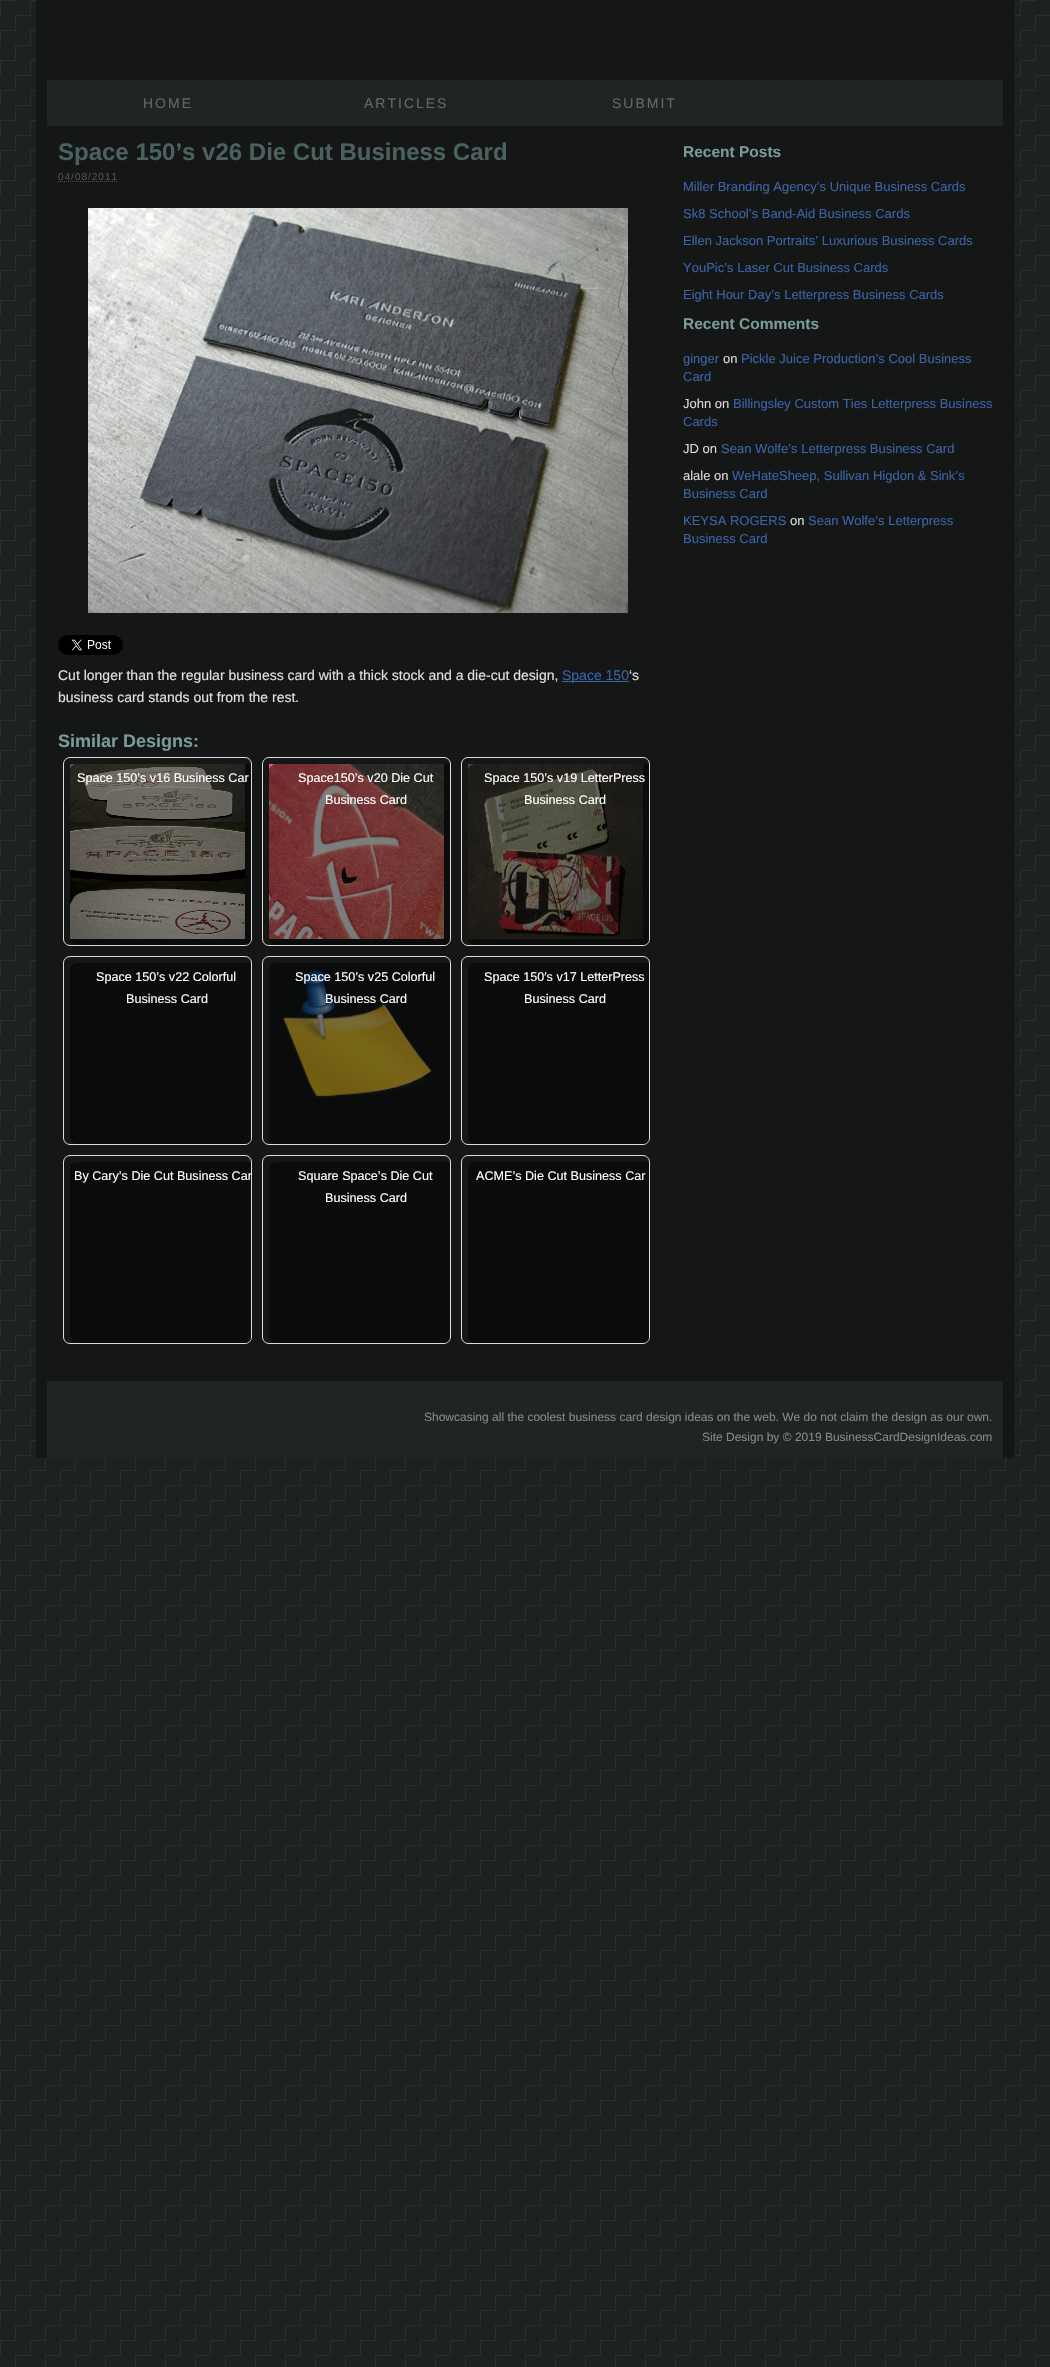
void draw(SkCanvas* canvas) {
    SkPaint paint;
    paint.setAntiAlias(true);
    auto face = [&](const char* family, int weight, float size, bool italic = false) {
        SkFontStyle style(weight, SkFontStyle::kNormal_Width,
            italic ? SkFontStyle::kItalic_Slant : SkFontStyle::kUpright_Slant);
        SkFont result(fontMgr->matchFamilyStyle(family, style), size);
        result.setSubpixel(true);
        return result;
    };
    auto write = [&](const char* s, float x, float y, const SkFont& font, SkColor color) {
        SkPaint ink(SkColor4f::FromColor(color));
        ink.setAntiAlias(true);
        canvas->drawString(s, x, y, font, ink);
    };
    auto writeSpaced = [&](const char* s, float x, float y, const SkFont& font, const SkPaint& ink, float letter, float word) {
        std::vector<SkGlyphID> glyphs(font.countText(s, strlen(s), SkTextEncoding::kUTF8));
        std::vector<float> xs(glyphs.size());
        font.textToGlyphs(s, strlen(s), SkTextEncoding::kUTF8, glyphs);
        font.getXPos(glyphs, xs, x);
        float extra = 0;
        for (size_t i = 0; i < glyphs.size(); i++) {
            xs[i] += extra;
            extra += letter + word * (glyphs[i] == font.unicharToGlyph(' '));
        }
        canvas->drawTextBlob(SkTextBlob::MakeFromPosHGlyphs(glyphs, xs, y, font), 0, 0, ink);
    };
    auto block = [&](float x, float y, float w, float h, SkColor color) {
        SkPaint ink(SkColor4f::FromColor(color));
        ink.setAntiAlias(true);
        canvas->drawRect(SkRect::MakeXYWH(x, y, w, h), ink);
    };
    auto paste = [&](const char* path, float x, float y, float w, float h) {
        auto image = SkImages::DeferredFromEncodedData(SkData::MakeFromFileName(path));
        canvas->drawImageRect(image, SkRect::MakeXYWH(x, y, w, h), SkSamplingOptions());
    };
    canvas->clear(SkColorSetRGB(29, 33, 32));
    paste("pic1.png", 0, 0, 1050, 2367);
    block(36, 0, 978, 1458, SkColorSetRGB(20, 23, 22));
    block(47, 80, 956, 46, SkColorSetRGB(32, 36, 35));
    auto kFont1 = face("Liberation Sans", 400, 14);
    paint.setColor(SkColorSetRGB(102, 102, 102));
    writeSpaced("HOME", 143, 108, kFont1, paint, 2, 0);
    writeSpaced("ARTICLES", 364, 108, kFont1, paint, 2, 0);
    writeSpaced("SUBMIT", 612, 108, kFont1, paint, 2, 0);
    auto kFont2 = face("Liberation Sans", 700, 24);
    write("Space 150’s v26 Die Cut Business Card", 58, 160, kFont2, SkColorSetRGB(75, 97, 95));
    auto kFont3 = face("Liberation Sans", 400, 10);
    paint.setColor(SkColorSetRGB(79, 79, 79));
    writeSpaced("04/08/2011", 58, 180, kFont3, paint, 1, 0);
    paint.setStyle(SkPaint::kStroke_Style);
    paint.setStrokeWidth(1);
    paint.setPathEffect(SkDashPathEffect::Make({{1, 1}}, 0));
    canvas->drawPath(SkPathBuilder().moveTo(58, 181.5f).lineTo(118, 181.5f).detach(), paint);
    paint.setPathEffect(nullptr);
    paste("pic2.png", 88, 208, 540, 405);
    paste("pic3.png", 58, 635, 65, 20);
    write("Cut longer than the regular business card with a thick stock and a die-cut design,", 58, 680, kFont1, SkColorSetRGB(224, 224, 224));
    block(562, 681, 67, 1, SkColorSetRGB(59, 99, 168));
    write("Space 150", 562, 680, kFont1, SkColorSetRGB(59, 99, 168));
    write("‘s", 629, 680, kFont1, SkColorSetRGB(224, 224, 224));
    write("business card stands out from the rest.", 58, 702, kFont1, SkColorSetRGB(224, 224, 224));
    auto kFont4 = face("Liberation Sans", 700, 18);
    write("Similar Designs:", 58, 747, kFont4, SkColorSetRGB(120, 156, 153));
    paint.setColor(SkColorSetRGB(221, 221, 221));
    canvas->drawRoundRect(SkRect::MakeXYWH(63.5f, 757.5f, 188, 188), 6.5f, 6.5f, paint);
    paste("pic4.png", 70, 764, 175, 175);
    paint.setStyle(SkPaint::kFill_Style);
    paint.setColor(SkColorSetARGB(128, 0, 0, 0));
    canvas->drawPath(SkPathBuilder().moveTo(77, 764).lineTo(251, 764).lineTo(251, 939).cubicTo(251, 942.5f, 248.5f, 945, 245, 945).lineTo(77, 945).cubicTo(73, 945, 70, 942, 70, 938).lineTo(70, 771).cubicTo(70, 767, 73, 764, 77, 764).close().detach(), paint);
    auto kFont5 = face("Liberation Sans", 400, 12.6f);
    write("Space 150’s v16 Business Car", 77, 782, kFont5, SK_ColorWHITE);
    paint.setStyle(SkPaint::kStroke_Style);
    paint.setColor(SkColorSetRGB(221, 221, 221));
    canvas->drawRoundRect(SkRect::MakeXYWH(262.5f, 757.5f, 188, 188), 6.5f, 6.5f, paint);
    paste("pic5.png", 269, 764, 175, 175);
    paint.setStyle(SkPaint::kFill_Style);
    paint.setColor(SkColorSetARGB(128, 0, 0, 0));
    canvas->drawPath(SkPathBuilder().moveTo(276, 764).lineTo(450, 764).lineTo(450, 939).cubicTo(450, 942.5f, 447.5f, 945, 444, 945).lineTo(276, 945).cubicTo(272, 945, 269, 942, 269, 938).lineTo(269, 771).cubicTo(269, 767, 272, 764, 276, 764).close().detach(), paint);
    write("Space150’s v20 Die Cut", 298, 782, kFont5, SK_ColorWHITE);
    write("Business Card", 325, 804, kFont5, SK_ColorWHITE);
    paint.setStyle(SkPaint::kStroke_Style);
    paint.setColor(SkColorSetRGB(221, 221, 221));
    canvas->drawRoundRect(SkRect::MakeXYWH(461.5f, 757.5f, 188, 188), 6.5f, 6.5f, paint);
    paste("pic6.png", 468, 764, 175, 175);
    paint.setStyle(SkPaint::kFill_Style);
    paint.setColor(SkColorSetARGB(128, 0, 0, 0));
    canvas->drawPath(SkPathBuilder().moveTo(475, 764).lineTo(649, 764).lineTo(649, 939).cubicTo(649, 942.5f, 646.5f, 945, 643, 945).lineTo(475, 945).cubicTo(471, 945, 468, 942, 468, 938).lineTo(468, 771).cubicTo(468, 767, 471, 764, 475, 764).close().detach(), paint);
    write("Space 150’s v19 LetterPress", 484, 782, kFont5, SK_ColorWHITE);
    write("Business Card", 524, 804, kFont5, SK_ColorWHITE);
    paint.setStyle(SkPaint::kStroke_Style);
    paint.setColor(SkColorSetRGB(221, 221, 221));
    canvas->drawRoundRect(SkRect::MakeXYWH(63.5f, 956.5f, 188, 188), 6.5f, 6.5f, paint);
    paint.setStyle(SkPaint::kFill_Style);
    paint.setColor(SkColorSetARGB(128, 0, 0, 0));
    canvas->drawPath(SkPathBuilder().moveTo(77, 963).lineTo(251, 963).lineTo(251, 1138).cubicTo(251, 1141.5f, 248.5f, 1144, 245, 1144).lineTo(77, 1144).cubicTo(73, 1144, 70, 1141, 70, 1137).lineTo(70, 970).cubicTo(70, 966, 73, 963, 77, 963).close().detach(), paint);
    write("Space 150’s v22 Colorful", 96, 981, kFont5, SK_ColorWHITE);
    write("Business Card", 126, 1003, kFont5, SK_ColorWHITE);
    paint.setStyle(SkPaint::kStroke_Style);
    paint.setColor(SkColorSetRGB(221, 221, 221));
    canvas->drawRoundRect(SkRect::MakeXYWH(262.5f, 956.5f, 188, 188), 6.5f, 6.5f, paint);
    paste("pic7.png", 282, 971, 150, 127);
    paint.setStyle(SkPaint::kFill_Style);
    paint.setColor(SkColorSetARGB(128, 0, 0, 0));
    canvas->drawPath(SkPathBuilder().moveTo(276, 963).lineTo(450, 963).lineTo(450, 1138).cubicTo(450, 1141.5f, 447.5f, 1144, 444, 1144).lineTo(276, 1144).cubicTo(272, 1144, 269, 1141, 269, 1137).lineTo(269, 970).cubicTo(269, 966, 272, 963, 276, 963).close().detach(), paint);
    write("Space 150’s v25 Colorful", 295, 981, kFont5, SK_ColorWHITE);
    write("Business Card", 325, 1003, kFont5, SK_ColorWHITE);
    paint.setStyle(SkPaint::kStroke_Style);
    paint.setColor(SkColorSetRGB(221, 221, 221));
    canvas->drawRoundRect(SkRect::MakeXYWH(461.5f, 956.5f, 188, 188), 6.5f, 6.5f, paint);
    paint.setStyle(SkPaint::kFill_Style);
    paint.setColor(SkColorSetARGB(128, 0, 0, 0));
    canvas->drawPath(SkPathBuilder().moveTo(475, 963).lineTo(649, 963).lineTo(649, 1138).cubicTo(649, 1141.5f, 646.5f, 1144, 643, 1144).lineTo(475, 1144).cubicTo(471, 1144, 468, 1141, 468, 1137).lineTo(468, 970).cubicTo(468, 966, 471, 963, 475, 963).close().detach(), paint);
    write("Space 150′s v17 LetterPress", 484, 981, kFont5, SK_ColorWHITE);
    write("Business Card", 524, 1003, kFont5, SK_ColorWHITE);
    paint.setStyle(SkPaint::kStroke_Style);
    paint.setColor(SkColorSetRGB(221, 221, 221));
    canvas->drawRoundRect(SkRect::MakeXYWH(63.5f, 1155.5f, 188, 188), 6.5f, 6.5f, paint);
    paint.setStyle(SkPaint::kFill_Style);
    paint.setColor(SkColorSetARGB(128, 0, 0, 0));
    canvas->drawPath(SkPathBuilder().moveTo(77, 1162).lineTo(251, 1162).lineTo(251, 1337).cubicTo(251, 1340.5f, 248.5f, 1343, 245, 1343).lineTo(77, 1343).cubicTo(73, 1343, 70, 1340, 70, 1336).lineTo(70, 1169).cubicTo(70, 1165, 73, 1162, 77, 1162).close().detach(), paint);
    write("By Cary’s Die Cut Business Car", 74, 1180, kFont5, SK_ColorWHITE);
    paint.setStyle(SkPaint::kStroke_Style);
    paint.setColor(SkColorSetRGB(221, 221, 221));
    canvas->drawRoundRect(SkRect::MakeXYWH(262.5f, 1155.5f, 188, 188), 6.5f, 6.5f, paint);
    paint.setStyle(SkPaint::kFill_Style);
    paint.setColor(SkColorSetARGB(128, 0, 0, 0));
    canvas->drawPath(SkPathBuilder().moveTo(276, 1162).lineTo(450, 1162).lineTo(450, 1337).cubicTo(450, 1340.5f, 447.5f, 1343, 444, 1343).lineTo(276, 1343).cubicTo(272, 1343, 269, 1340, 269, 1336).lineTo(269, 1169).cubicTo(269, 1165, 272, 1162, 276, 1162).close().detach(), paint);
    write("Square Space’s Die Cut", 298, 1180, kFont5, SK_ColorWHITE);
    write("Business Card", 325, 1202, kFont5, SK_ColorWHITE);
    paint.setStyle(SkPaint::kStroke_Style);
    paint.setColor(SkColorSetRGB(221, 221, 221));
    canvas->drawRoundRect(SkRect::MakeXYWH(461.5f, 1155.5f, 188, 188), 6.5f, 6.5f, paint);
    paint.setStyle(SkPaint::kFill_Style);
    paint.setColor(SkColorSetARGB(128, 0, 0, 0));
    canvas->drawPath(SkPathBuilder().moveTo(475, 1162).lineTo(649, 1162).lineTo(649, 1337).cubicTo(649, 1340.5f, 646.5f, 1343, 643, 1343).lineTo(475, 1343).cubicTo(471, 1343, 468, 1340, 468, 1336).lineTo(468, 1169).cubicTo(468, 1165, 471, 1162, 475, 1162).close().detach(), paint);
    write("ACME’s Die Cut Business Car", 476, 1180, kFont5, SK_ColorWHITE);
    auto kFont6 = face("Liberation Sans", 700, 15.5f);
    write("Recent Posts", 683, 157, kFont6, SkColorSetRGB(120, 156, 153));
    auto kFont7 = face("Liberation Sans", 400, 13);
    write("Miller Branding Agency’s Unique Business Cards", 683, 191, kFont7, SkColorSetRGB(59, 99, 168));
    write("Sk8 School’s Band-Aid Business Cards", 683, 218, kFont7, SkColorSetRGB(59, 99, 168));
    write("Ellen Jackson Portraits’ Luxurious Business Cards", 683, 245, kFont7, SkColorSetRGB(59, 99, 168));
    write("YouPic’s Laser Cut Business Cards", 683, 272, kFont7, SkColorSetRGB(59, 99, 168));
    write("Eight Hour Day’s Letterpress Business Cards", 683, 299, kFont7, SkColorSetRGB(59, 99, 168));
    write("Recent Comments", 683, 329, kFont6, SkColorSetRGB(120, 156, 153));
    write("ginger", 683, 363, kFont7, SkColorSetRGB(59, 99, 168));
    write("on", 723, 363, kFont7, SkColorSetRGB(217, 217, 217));
    write("Pickle Juice Production’s Cool Business", 741, 363, kFont7, SkColorSetRGB(59, 99, 168));
    write("Card", 683, 381, kFont7, SkColorSetRGB(59, 99, 168));
    write("John on", 683, 408, kFont7, SkColorSetRGB(217, 217, 217));
    write("Billingsley Custom Ties Letterpress Business", 733, 408, kFont7, SkColorSetRGB(59, 99, 168));
    write("Cards", 683, 426, kFont7, SkColorSetRGB(59, 99, 168));
    write("JD on", 683, 453, kFont7, SkColorSetRGB(217, 217, 217));
    write("Sean Wolfe’s Letterpress Business Card", 721, 453, kFont7, SkColorSetRGB(59, 99, 168));
    write("alale on", 683, 480, kFont7, SkColorSetRGB(217, 217, 217));
    write("WeHateSheep, Sullivan Higdon & Sink’s", 732, 480, kFont7, SkColorSetRGB(59, 99, 168));
    write("Business Card", 683, 498, kFont7, SkColorSetRGB(59, 99, 168));
    write("KEYSA ROGERS", 683, 525, kFont7, SkColorSetRGB(59, 99, 168));
    write("on", 790, 525, kFont7, SkColorSetRGB(217, 217, 217));
    write("Sean Wolfe’s Letterpress", 808, 525, kFont7, SkColorSetRGB(59, 99, 168));
    write("Business Card", 683, 543, kFont7, SkColorSetRGB(59, 99, 168));
    block(47, 1381, 956, 77, SkColorSetRGB(32, 36, 35));
    auto kFont8 = face("Liberation Sans", 400, 12);
    write("Showcasing all the coolest business card design ideas on the web. We do not claim the design as our own.", 424, 1421, kFont8, SkColorSetRGB(136, 136, 136));
    write("Site Design by © 2019 BusinessCardDesignIdeas.com", 702, 1441, kFont8, SkColorSetRGB(136, 136, 136));
}
